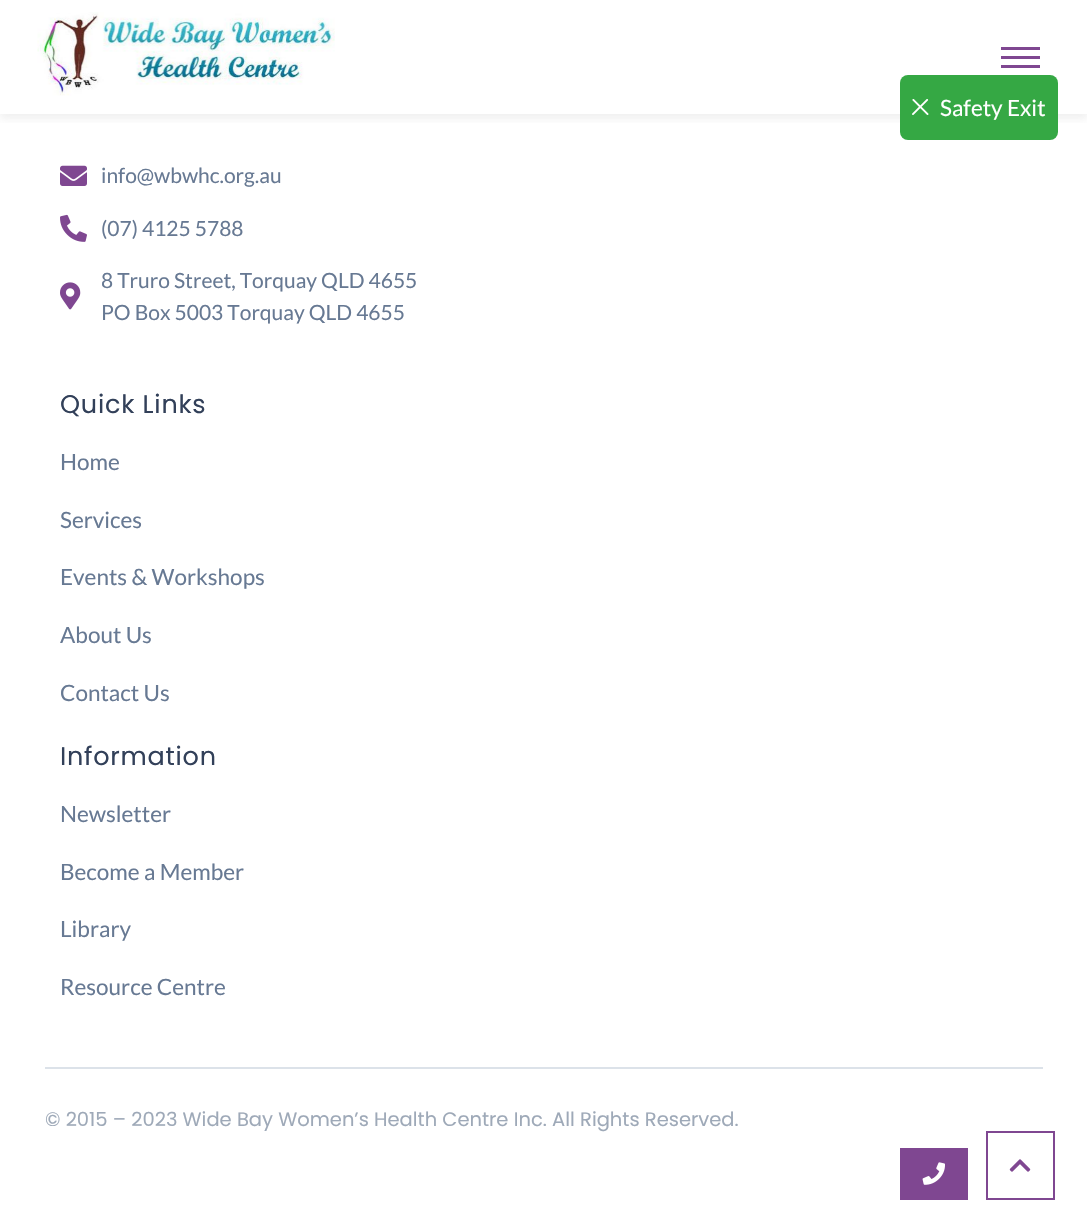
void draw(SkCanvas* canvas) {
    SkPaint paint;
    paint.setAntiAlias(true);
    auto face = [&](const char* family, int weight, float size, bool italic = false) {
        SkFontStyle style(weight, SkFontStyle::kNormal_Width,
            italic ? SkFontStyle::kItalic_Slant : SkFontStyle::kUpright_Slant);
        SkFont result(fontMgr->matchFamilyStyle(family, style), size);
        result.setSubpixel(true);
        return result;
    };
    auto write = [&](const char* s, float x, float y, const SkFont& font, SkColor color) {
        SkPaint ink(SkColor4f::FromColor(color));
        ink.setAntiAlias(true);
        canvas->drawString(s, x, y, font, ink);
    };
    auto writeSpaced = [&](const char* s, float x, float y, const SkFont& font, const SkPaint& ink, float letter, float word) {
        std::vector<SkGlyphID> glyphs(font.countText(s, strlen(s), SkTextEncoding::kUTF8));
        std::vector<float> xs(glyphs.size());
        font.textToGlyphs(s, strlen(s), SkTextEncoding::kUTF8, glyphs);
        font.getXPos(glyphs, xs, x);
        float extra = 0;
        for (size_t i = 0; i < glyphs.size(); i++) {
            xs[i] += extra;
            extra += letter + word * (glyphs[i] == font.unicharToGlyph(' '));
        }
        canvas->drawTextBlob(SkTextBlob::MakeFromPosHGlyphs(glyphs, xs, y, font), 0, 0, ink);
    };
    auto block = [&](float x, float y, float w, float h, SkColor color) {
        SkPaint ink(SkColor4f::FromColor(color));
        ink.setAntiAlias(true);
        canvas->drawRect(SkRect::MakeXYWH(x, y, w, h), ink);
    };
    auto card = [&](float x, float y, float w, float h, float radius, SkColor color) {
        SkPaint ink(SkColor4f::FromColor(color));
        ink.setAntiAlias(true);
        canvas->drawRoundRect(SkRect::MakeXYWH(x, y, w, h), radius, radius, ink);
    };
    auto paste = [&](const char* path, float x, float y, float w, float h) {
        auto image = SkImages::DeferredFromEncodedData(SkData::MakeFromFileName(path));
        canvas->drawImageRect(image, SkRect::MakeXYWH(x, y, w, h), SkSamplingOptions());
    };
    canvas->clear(SK_ColorWHITE);
    canvas->save();
    canvas->clipRect(SkRect::MakeXYWH(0, 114, 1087, 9));
    paint.setColor(SkColorSetARGB(33, 136, 136, 136));
    paint.setMaskFilter(SkMaskFilter::MakeBlur(kNormal_SkBlurStyle, 4));
    canvas->drawRect(SkRect::MakeXYWH(0, 5, 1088, 114), paint);
    paint.setMaskFilter(nullptr);
    canvas->restore();
    paste("pic1.png", 37, 12, 298, 84);
    block(1001, 47, 39, 3, SkColorSetRGB(127, 71, 145));
    block(1001, 56, 39, 3, SkColorSetRGB(127, 71, 145));
    block(1001, 65, 39, 3, SkColorSetRGB(127, 71, 145));
    card(900, 75, 158, 65, 8, SkColorSetRGB(53, 168, 68));
    paste("pic2.png", 912, 99, 17, 16);
    auto kFont1 = face("Lato", 400, 22.5f);
    write("Safety Exit", 940, 116, kFont1, SK_ColorWHITE);
    block(900, 1148, 68, 52, SkColorSetRGB(127, 71, 145));
    paste("pic3.png", 922, 1162, 23, 23);
    paste("pic4.png", 60, 165, 27, 21);
    auto kFont2 = face("Lato", 400, 21);
    write("info@wbwhc.org.au", 101, 183, kFont2, SkColorSetRGB(103, 121, 147));
    paste("pic5.png", 60, 214, 27, 28);
    write("(07) 4125 5788", 101, 236, kFont2, SkColorSetRGB(103, 121, 147));
    paste("pic6.png", 60, 282, 21, 28);
    write("8 Truro Street, Torquay QLD 4655", 101, 288, kFont2, SkColorSetRGB(103, 121, 147));
    write("PO Box 5003 Torquay QLD 4655", 101, 320, kFont2, SkColorSetRGB(103, 121, 147));
    auto kFont3 = face("Poppins", 400, 25.5f);
    paint.setColor(SkColorSetRGB(50, 64, 89));
    writeSpaced("Quick Links", 60, 413, kFont3, paint, 0.75f, 0);
    write("Home", 60, 470, kFont1, SkColorSetRGB(103, 121, 147));
    write("Services", 60, 528, kFont1, SkColorSetRGB(103, 121, 147));
    write("Events & Workshops", 60, 585, kFont1, SkColorSetRGB(103, 121, 147));
    write("About Us", 60, 643, kFont1, SkColorSetRGB(103, 121, 147));
    write("Contact Us", 60, 701, kFont1, SkColorSetRGB(103, 121, 147));
    writeSpaced("Information", 60, 765, kFont3, paint, 0.75f, 0);
    write("Newsletter", 60, 822, kFont1, SkColorSetRGB(103, 121, 147));
    write("Become a Member", 60, 880, kFont1, SkColorSetRGB(103, 121, 147));
    write("Library", 60, 937, kFont1, SkColorSetRGB(103, 121, 147));
    write("Resource Centre", 60, 995, kFont1, SkColorSetRGB(103, 121, 147));
    block(45, 1067, 998, 2, SkColorSetRGB(220, 226, 233));
    auto kFont4 = face("Poppins", 400, 19.5f);
    write("© 2015 – 2023 Wide Bay Women’s Health Centre Inc. All Rights Reserved.", 45, 1126, kFont4, SkColorSetRGB(158, 169, 184));
    paint.setStyle(SkPaint::kStroke_Style);
    paint.setStrokeWidth(2);
    paint.setColor(SkColorSetRGB(127, 71, 145));
    canvas->drawRect(SkRect::MakeXYWH(987, 1132, 67, 67), paint);
    paste("pic7.png", 1009, 1159, 22, 13);
}
